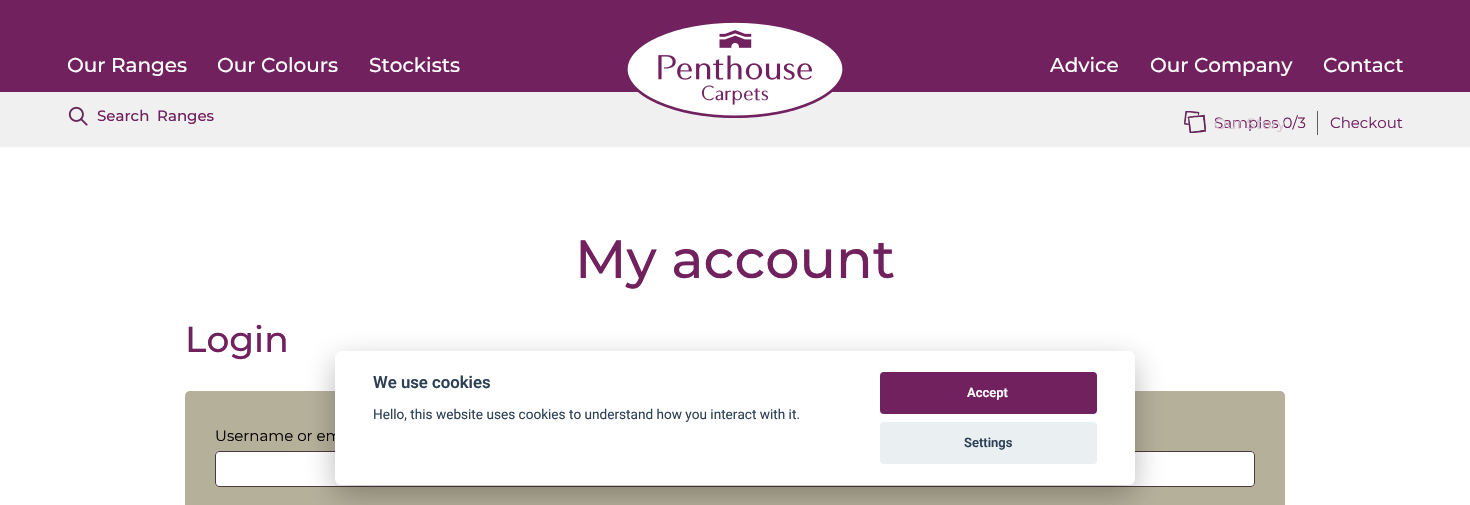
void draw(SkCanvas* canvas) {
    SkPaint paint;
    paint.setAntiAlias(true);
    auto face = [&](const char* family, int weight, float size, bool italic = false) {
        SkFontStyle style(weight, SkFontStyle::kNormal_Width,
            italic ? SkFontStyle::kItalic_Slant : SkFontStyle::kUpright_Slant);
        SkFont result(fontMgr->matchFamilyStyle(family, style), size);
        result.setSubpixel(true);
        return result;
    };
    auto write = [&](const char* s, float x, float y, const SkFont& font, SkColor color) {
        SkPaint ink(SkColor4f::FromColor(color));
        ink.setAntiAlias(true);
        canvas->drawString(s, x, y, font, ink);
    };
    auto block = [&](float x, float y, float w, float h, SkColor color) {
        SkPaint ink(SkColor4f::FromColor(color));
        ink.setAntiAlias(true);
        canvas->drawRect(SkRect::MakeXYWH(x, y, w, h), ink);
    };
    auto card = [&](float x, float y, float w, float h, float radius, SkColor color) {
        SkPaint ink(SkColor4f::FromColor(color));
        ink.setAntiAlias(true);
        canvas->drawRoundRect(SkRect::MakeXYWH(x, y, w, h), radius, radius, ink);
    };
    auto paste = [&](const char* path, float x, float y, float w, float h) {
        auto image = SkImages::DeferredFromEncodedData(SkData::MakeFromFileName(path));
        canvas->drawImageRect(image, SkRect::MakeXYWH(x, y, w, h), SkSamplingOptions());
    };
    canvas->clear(SK_ColorWHITE);
    block(0, 0, 1470, 92, SkColorSetRGB(112, 33, 94));
    auto kFont1 = face("Montserrat", 500, 20);
    write("Our Ranges", 67, 72, kFont1, SK_ColorWHITE);
    write("Our Colours", 217, 72, kFont1, SK_ColorWHITE);
    write("Stockists", 369, 72, kFont1, SK_ColorWHITE);
    block(0, 92, 1470, 55, SkColorSetRGB(240, 240, 240));
    paste("pic1.png", 627, 22, 216, 96);
    write("Advice", 1050, 72, kFont1, SK_ColorWHITE);
    write("Our Company", 1150, 72, kFont1, SK_ColorWHITE);
    auto kFont2 = face("Montserrat", 400, 15);
    write("Samples 0/3", 1214, 128, kFont2, SkColorSetRGB(112, 33, 94));
    write("Our Story", 1214, 129, kFont2, SkColorSetRGB(212, 194, 208));
    write("Contact", 1323, 72, kFont1, SK_ColorWHITE);
    paste("pic2.png", 68, 106, 20, 20);
    auto kFont3 = face("Montserrat", 500, 15);
    write("Search", 97, 121, kFont3, SkColorSetRGB(112, 33, 94));
    write("Ranges", 157, 121, kFont3, SkColorSetRGB(112, 33, 94));
    paste("pic3.png", 1184, 111, 22, 22);
    block(1317, 111, 1, 24, SkColorSetRGB(96, 96, 96));
    write("Checkout", 1330, 128, kFont2, SkColorSetRGB(112, 33, 94));
    auto kFont4 = face("Montserrat", 500, 54);
    write("My account", 575, 278, kFont4, SkColorSetRGB(112, 33, 94));
    auto kFont5 = face("Montserrat", 500, 36);
    write("Login", 185, 352, kFont5, SkColorSetRGB(112, 33, 94));
    card(185, 391, 1100, 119, 5, SkColorSetRGB(181, 176, 154));
    write("Username or em", 215, 441, kFont2, SK_ColorBLACK);
    card(215, 451, 1040, 36, 4, SK_ColorWHITE);
    paint.setStyle(SkPaint::kStroke_Style);
    paint.setStrokeWidth(1);
    paint.setColor(SkColorSetARGB(204, 32, 7, 7));
    canvas->drawRoundRect(SkRect::MakeXYWH(215.5f, 451.5f, 1039, 35), 3.5f, 3.5f, paint);
    paint.setStyle(SkPaint::kFill_Style);
    paint.setColor(SkColorSetARGB(71, 2, 2, 3));
    paint.setMaskFilter(SkMaskFilter::MakeBlur(kNormal_SkBlurStyle, 15));
    canvas->drawRoundRect(SkRect::MakeXYWH(335, 361, 800, 134), 6, 6, paint);
    paint.setMaskFilter(nullptr);
    card(335, 351, 800, 134, 6, SK_ColorWHITE);
    auto kFont6 = face("Roboto", 600, 16.75f);
    write("We use cookies", 373, 388, kFont6, SkColorSetRGB(45, 65, 86));
    auto kFont7 = face("Roboto", 400, 13.6f);
    write("Hello, this website uses cookies to understand how you interact with it.", 373, 419, kFont7, SkColorSetRGB(45, 65, 86));
    card(880, 372, 217, 42, 4, SkColorSetRGB(112, 33, 94));
    auto kFont8 = face("Roboto", 600, 13);
    write("Accept", 967, 397, kFont8, SK_ColorWHITE);
    card(880, 422, 217, 42, 4, SkColorSetRGB(234, 239, 242));
    write("Settings", 964, 447, kFont8, SkColorSetRGB(45, 65, 86));
}
